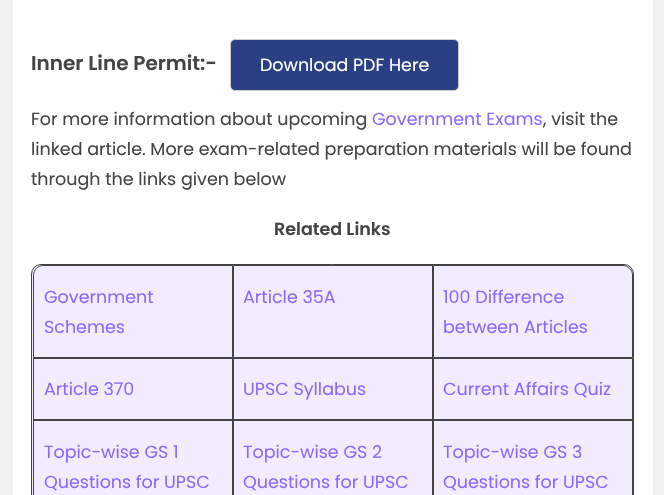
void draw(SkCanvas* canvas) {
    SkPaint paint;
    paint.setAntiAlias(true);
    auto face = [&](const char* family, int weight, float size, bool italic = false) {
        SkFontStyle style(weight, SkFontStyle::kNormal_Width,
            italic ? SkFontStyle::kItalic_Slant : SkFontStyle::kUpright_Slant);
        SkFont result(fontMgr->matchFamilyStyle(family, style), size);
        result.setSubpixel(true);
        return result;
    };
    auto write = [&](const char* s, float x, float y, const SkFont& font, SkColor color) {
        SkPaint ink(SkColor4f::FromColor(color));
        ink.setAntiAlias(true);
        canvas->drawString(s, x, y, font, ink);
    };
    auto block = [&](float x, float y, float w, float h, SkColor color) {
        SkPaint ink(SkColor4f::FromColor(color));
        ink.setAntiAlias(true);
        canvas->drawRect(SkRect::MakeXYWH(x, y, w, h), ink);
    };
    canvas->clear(SkColorSetRGB(241, 241, 241));
    block(13, 0, 640, 495, SK_ColorWHITE);
    auto kFont1 = face("Poppins", 600, 20);
    write("Inner Line Permit:-", 31, 70, kFont1, SkColorSetRGB(68, 68, 68));
    paint.setColor(SkColorSetRGB(43, 63, 132));
    canvas->drawRoundRect(SkRect::MakeXYWH(230.5f, 39.5f, 228, 51), 4.5f, 4.5f, paint);
    paint.setStyle(SkPaint::kStroke_Style);
    paint.setStrokeWidth(1);
    paint.setColor(SkColorSetRGB(204, 204, 204));
    canvas->drawRoundRect(SkRect::MakeXYWH(230.5f, 39.5f, 228, 51), 4.5f, 4.5f, paint);
    auto kFont2 = face("Poppins", 400, 17.5f);
    write("Download PDF Here", 260, 71, kFont2, SK_ColorWHITE);
    write("For more information about upcoming", 31, 125, kFont2, SkColorSetRGB(68, 68, 68));
    write("Government Exams", 372, 125, kFont2, SkColorSetRGB(140, 105, 255));
    write(", visit the", 543, 125, kFont2, SkColorSetRGB(68, 68, 68));
    write("linked article. More exam-related preparation materials will be found", 31, 155, kFont2, SkColorSetRGB(68, 68, 68));
    write("through the links given below", 31, 185, kFont2, SkColorSetRGB(68, 68, 68));
    auto kFont3 = face("Poppins", 600, 17.5f);
    write("Related Links", 274, 235, kFont3, SkColorSetRGB(68, 68, 68));
    paint.setStyle(SkPaint::kFill_Style);
    paint.setColor(SkColorSetRGB(241, 237, 255));
    canvas->drawRoundRect(SkRect::MakeXYWH(31.5f, 264.5f, 602, 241), 9.5f, 9.5f, paint);
    paint.setStyle(SkPaint::kStroke_Style);
    paint.setColor(SkColorSetRGB(68, 68, 68));
    canvas->drawRoundRect(SkRect::MakeXYWH(31.5f, 264.5f, 602, 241), 9.5f, 9.5f, paint);
    canvas->drawPath(SkPathBuilder().moveTo(43, 265.5f).lineTo(232.5f, 265.5f).lineTo(232.5f, 357.5f).lineTo(33.5f, 357.5f).lineTo(33.5f, 275).cubicTo(33.5f, 270, 38, 265.5f, 43, 265.5f).close().detach(), paint);
    write("Government", 44, 303, kFont2, SkColorSetRGB(140, 105, 255));
    write("Schemes", 44, 333, kFont2, SkColorSetRGB(140, 105, 255));
    canvas->drawRect(SkRect::MakeXYWH(233.5f, 265.5f, 199, 92), paint);
    write("Article 35A", 243, 303, kFont2, SkColorSetRGB(140, 105, 255));
    canvas->drawPath(SkPathBuilder().moveTo(433.5f, 265.5f).lineTo(623, 265.5f).cubicTo(628, 265.5f, 632.5f, 270, 632.5f, 275).lineTo(632.5f, 357.5f).lineTo(433.5f, 357.5f).close().detach(), paint);
    write("100 Difference", 443, 303, kFont2, SkColorSetRGB(140, 105, 255));
    write("between Articles", 443, 333, kFont2, SkColorSetRGB(140, 105, 255));
    canvas->drawRect(SkRect::MakeXYWH(33.5f, 358.5f, 199, 61), paint);
    write("Article 370", 44, 395, kFont2, SkColorSetRGB(140, 105, 255));
    canvas->drawRect(SkRect::MakeXYWH(233.5f, 358.5f, 199, 61), paint);
    write("UPSC Syllabus", 243, 395, kFont2, SkColorSetRGB(140, 105, 255));
    canvas->drawRect(SkRect::MakeXYWH(433.5f, 358.5f, 199, 61), paint);
    write("Current Affairs Quiz", 443, 395, kFont2, SkColorSetRGB(140, 105, 255));
    canvas->drawRect(SkRect::MakeXYWH(33.5f, 420.5f, 199, 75), paint);
    write("Topic-wise GS 1", 44, 458, kFont2, SkColorSetRGB(140, 105, 255));
    write("Questions for UPSC", 44, 488, kFont2, SkColorSetRGB(140, 105, 255));
    canvas->drawRect(SkRect::MakeXYWH(233.5f, 420.5f, 199, 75), paint);
    write("Topic-wise GS 2", 243, 458, kFont2, SkColorSetRGB(140, 105, 255));
    write("Questions for UPSC", 243, 488, kFont2, SkColorSetRGB(140, 105, 255));
    canvas->drawRect(SkRect::MakeXYWH(433.5f, 420.5f, 199, 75), paint);
    write("Topic-wise GS 3", 443, 458, kFont2, SkColorSetRGB(140, 105, 255));
    write("Questions for UPSC", 443, 488, kFont2, SkColorSetRGB(140, 105, 255));
}
